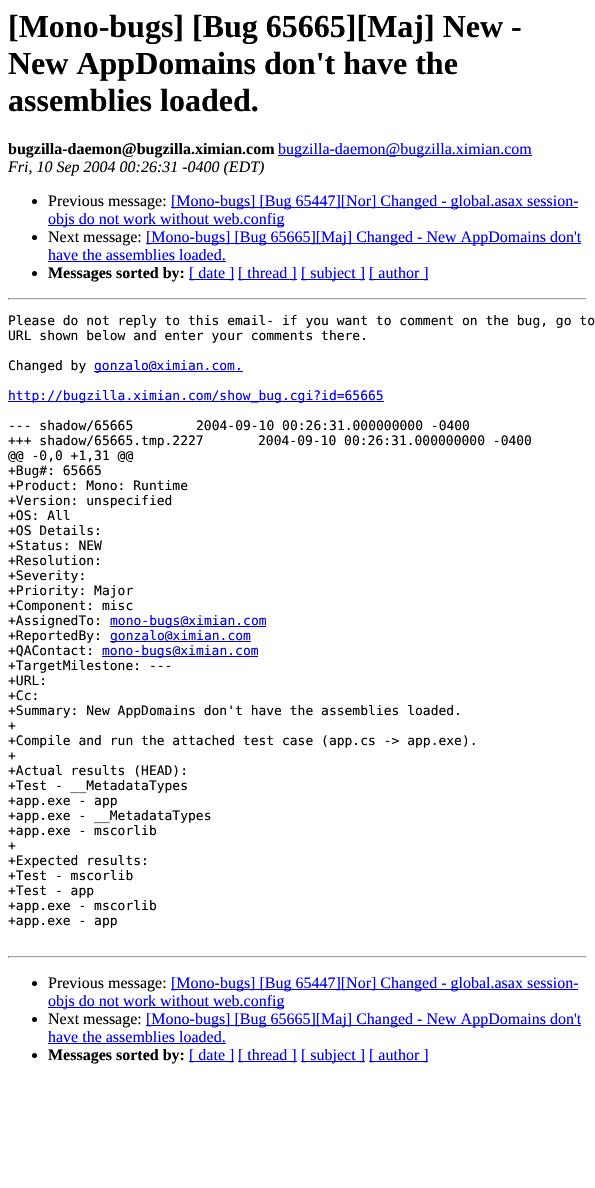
void draw(SkCanvas* canvas) {
    SkPaint paint;
    paint.setAntiAlias(true);
    auto face = [&](const char* family, int weight, float size, bool italic = false) {
        SkFontStyle style(weight, SkFontStyle::kNormal_Width,
            italic ? SkFontStyle::kItalic_Slant : SkFontStyle::kUpright_Slant);
        SkFont result(fontMgr->matchFamilyStyle(family, style), size);
        result.setSubpixel(true);
        return result;
    };
    auto write = [&](const char* s, float x, float y, const SkFont& font, SkColor color) {
        SkPaint ink(SkColor4f::FromColor(color));
        ink.setAntiAlias(true);
        canvas->drawString(s, x, y, font, ink);
    };
    auto block = [&](float x, float y, float w, float h, SkColor color) {
        SkPaint ink(SkColor4f::FromColor(color));
        ink.setAntiAlias(true);
        canvas->drawRect(SkRect::MakeXYWH(x, y, w, h), ink);
    };
    canvas->clear(SK_ColorWHITE);
    auto kFont1 = face("Liberation Serif", 700, 32);
    write("[Mono-bugs] [Bug 65665][Maj] New -", 8, 37, kFont1, SK_ColorBLACK);
    write("New AppDomains don't have the", 8, 74, kFont1, SK_ColorBLACK);
    write("assemblies loaded.", 8, 111, kFont1, SK_ColorBLACK);
    auto kFont2 = face("Liberation Serif", 700, 16);
    write("bugzilla-daemon@bugzilla.ximian.com", 8, 154, kFont2, SK_ColorBLACK);
    block(278, 155, 254, 1, SkColorSetRGB(0, 0, 238));
    auto kFont3 = face("Liberation Serif", 400, 16);
    write("bugzilla-daemon@bugzilla.ximian.com", 278, 154, kFont3, SkColorSetRGB(0, 0, 238));
    auto kFont4 = face("Liberation Serif", 400, 16, true);
    write("Fri, 10 Sep 2004 00:26:31 -0400 (EDT)", 8, 172, kFont4, SK_ColorBLACK);
    paint.setColor(SK_ColorBLACK);
    canvas->drawCircle(34.5f, 201.5f, 2.5f, paint);
    write("Previous message:", 48, 206, kFont3, SK_ColorBLACK);
    block(171, 207, 407, 1, SkColorSetRGB(0, 0, 238));
    write("[Mono-bugs] [Bug 65447][Nor] Changed - global.asax session-", 171, 206, kFont3, SkColorSetRGB(0, 0, 238));
    block(48, 225, 236, 1, SkColorSetRGB(0, 0, 238));
    write("objs do not work without web.config", 48, 224, kFont3, SkColorSetRGB(0, 0, 238));
    canvas->drawCircle(34.5f, 237.5f, 2.5f, paint);
    write("Next message:", 48, 242, kFont3, SK_ColorBLACK);
    block(146, 243, 435, 1, SkColorSetRGB(0, 0, 238));
    write("[Mono-bugs] [Bug 65665][Maj] Changed - New AppDomains don't", 146, 242, kFont3, SkColorSetRGB(0, 0, 238));
    write("have the assemblies loaded.", 48, 260, kFont3, SkColorSetRGB(0, 0, 238));
    block(48, 261, 178, 1, SkColorSetRGB(0, 0, 238));
    canvas->drawCircle(34.5f, 273.5f, 2.5f, paint);
    write("Messages sorted by:", 48, 278, kFont2, SK_ColorBLACK);
    block(189, 279, 45, 1, SkColorSetRGB(0, 0, 238));
    write("[ date ]", 189, 278, kFont3, SkColorSetRGB(0, 0, 238));
    block(238, 279, 59, 1, SkColorSetRGB(0, 0, 238));
    write("[ thread ]", 238, 278, kFont3, SkColorSetRGB(0, 0, 238));
    block(301, 279, 64, 1, SkColorSetRGB(0, 0, 238));
    write("[ subject ]", 301, 278, kFont3, SkColorSetRGB(0, 0, 238));
    block(369, 279, 59, 1, SkColorSetRGB(0, 0, 238));
    write("[ author ]", 369, 278, kFont3, SkColorSetRGB(0, 0, 238));
    block(8, 298, 579, 1, SkColorSetRGB(159, 159, 159));
    block(586, 298, 1, 2, SkColorSetRGB(238, 238, 238));
    block(8, 299, 579, 1, SkColorSetRGB(238, 238, 238));
    block(8, 298, 1, 2, SkColorSetRGB(159, 159, 159));
    auto kFont5 = face("DejaVu Sans Mono", 400, 13);
    write("Please do not reply to this email- if you want to comment on the bug, go to", 8, 325, kFont5, SK_ColorBLACK);
    write("URL shown below and enter your comments there.", 8, 340, kFont5, SK_ColorBLACK);
    write("Changed by", 8, 370, kFont5, SK_ColorBLACK);
    block(94, 371, 149, 1, SkColorSetRGB(0, 0, 238));
    write("gonzalo@ximian.com.", 94, 370, kFont5, SkColorSetRGB(0, 0, 238));
    block(8, 401, 376, 1, SkColorSetRGB(0, 0, 238));
    write("http://bugzilla.ximian.com/show_bug.cgi?id=65665", 8, 400, kFont5, SkColorSetRGB(0, 0, 238));
    write("--- shadow/65665", 8, 430, kFont5, SK_ColorBLACK);
    write("2004-09-10 00:26:31.000000000 -0400", 196, 430, kFont5, SK_ColorBLACK);
    write("+++ shadow/65665.tmp.2227", 8, 445, kFont5, SK_ColorBLACK);
    write("2004-09-10 00:26:31.000000000 -0400", 258, 445, kFont5, SK_ColorBLACK);
    write("@@ -0,0 +1,31 @@", 8, 460, kFont5, SK_ColorBLACK);
    write("+Bug#: 65665", 8, 475, kFont5, SK_ColorBLACK);
    write("+Product: Mono: Runtime", 8, 490, kFont5, SK_ColorBLACK);
    write("+Version: unspecified", 8, 505, kFont5, SK_ColorBLACK);
    write("+OS: All", 8, 520, kFont5, SK_ColorBLACK);
    write("+OS Details:", 8, 535, kFont5, SK_ColorBLACK);
    write("+Status: NEW", 8, 550, kFont5, SK_ColorBLACK);
    write("+Resolution:", 8, 565, kFont5, SK_ColorBLACK);
    write("+Severity:", 8, 580, kFont5, SK_ColorBLACK);
    write("+Priority: Major", 8, 595, kFont5, SK_ColorBLACK);
    write("+Component: misc", 8, 610, kFont5, SK_ColorBLACK);
    write("+AssignedTo:", 8, 625, kFont5, SK_ColorBLACK);
    block(110, 626, 156, 1, SkColorSetRGB(0, 0, 238));
    write("mono-bugs@ximian.com", 110, 625, kFont5, SkColorSetRGB(0, 0, 238));
    write("+ReportedBy:", 8, 640, kFont5, SK_ColorBLACK);
    block(110, 641, 141, 1, SkColorSetRGB(0, 0, 238));
    write("gonzalo@ximian.com", 110, 640, kFont5, SkColorSetRGB(0, 0, 238));
    write("+QAContact:", 8, 655, kFont5, SK_ColorBLACK);
    block(102, 656, 156, 1, SkColorSetRGB(0, 0, 238));
    write("mono-bugs@ximian.com", 102, 655, kFont5, SkColorSetRGB(0, 0, 238));
    write("+TargetMilestone: ---", 8, 670, kFont5, SK_ColorBLACK);
    write("+URL:", 8, 685, kFont5, SK_ColorBLACK);
    write("+Cc:", 8, 700, kFont5, SK_ColorBLACK);
    write("+Summary: New AppDomains don't have the assemblies loaded.", 8, 715, kFont5, SK_ColorBLACK);
    write("+", 8, 730, kFont5, SK_ColorBLACK);
    write("+Compile and run the attached test case (app.cs -> app.exe).", 8, 745, kFont5, SK_ColorBLACK);
    write("+", 8, 760, kFont5, SK_ColorBLACK);
    write("+Actual results (HEAD):", 8, 775, kFont5, SK_ColorBLACK);
    write("+Test - __MetadataTypes", 8, 790, kFont5, SK_ColorBLACK);
    write("+app.exe - app", 8, 805, kFont5, SK_ColorBLACK);
    write("+app.exe - __MetadataTypes", 8, 820, kFont5, SK_ColorBLACK);
    write("+app.exe - mscorlib", 8, 835, kFont5, SK_ColorBLACK);
    write("+", 8, 850, kFont5, SK_ColorBLACK);
    write("+Expected results:", 8, 865, kFont5, SK_ColorBLACK);
    write("+Test - mscorlib", 8, 880, kFont5, SK_ColorBLACK);
    write("+Test - app", 8, 895, kFont5, SK_ColorBLACK);
    write("+app.exe - mscorlib", 8, 910, kFont5, SK_ColorBLACK);
    write("+app.exe - app", 8, 925, kFont5, SK_ColorBLACK);
    block(8, 956, 579, 1, SkColorSetRGB(159, 159, 159));
    block(586, 956, 1, 2, SkColorSetRGB(238, 238, 238));
    block(8, 957, 579, 1, SkColorSetRGB(238, 238, 238));
    block(8, 956, 1, 2, SkColorSetRGB(159, 159, 159));
    canvas->drawCircle(34.5f, 983.5f, 2.5f, paint);
    write("Previous message:", 48, 988, kFont3, SK_ColorBLACK);
    block(171, 989, 407, 1, SkColorSetRGB(0, 0, 238));
    write("[Mono-bugs] [Bug 65447][Nor] Changed - global.asax session-", 171, 988, kFont3, SkColorSetRGB(0, 0, 238));
    block(48, 1007, 236, 1, SkColorSetRGB(0, 0, 238));
    write("objs do not work without web.config", 48, 1006, kFont3, SkColorSetRGB(0, 0, 238));
    canvas->drawCircle(34.5f, 1019.5f, 2.5f, paint);
    write("Next message:", 48, 1024, kFont3, SK_ColorBLACK);
    block(146, 1025, 435, 1, SkColorSetRGB(0, 0, 238));
    write("[Mono-bugs] [Bug 65665][Maj] Changed - New AppDomains don't", 146, 1024, kFont3, SkColorSetRGB(0, 0, 238));
    write("have the assemblies loaded.", 48, 1042, kFont3, SkColorSetRGB(0, 0, 238));
    block(48, 1043, 178, 1, SkColorSetRGB(0, 0, 238));
    canvas->drawCircle(34.5f, 1055.5f, 2.5f, paint);
    write("Messages sorted by:", 48, 1060, kFont2, SK_ColorBLACK);
    block(189, 1061, 45, 1, SkColorSetRGB(0, 0, 238));
    write("[ date ]", 189, 1060, kFont3, SkColorSetRGB(0, 0, 238));
    block(238, 1061, 59, 1, SkColorSetRGB(0, 0, 238));
    write("[ thread ]", 238, 1060, kFont3, SkColorSetRGB(0, 0, 238));
    block(301, 1061, 64, 1, SkColorSetRGB(0, 0, 238));
    write("[ subject ]", 301, 1060, kFont3, SkColorSetRGB(0, 0, 238));
    block(369, 1061, 59, 1, SkColorSetRGB(0, 0, 238));
    write("[ author ]", 369, 1060, kFont3, SkColorSetRGB(0, 0, 238));
}
